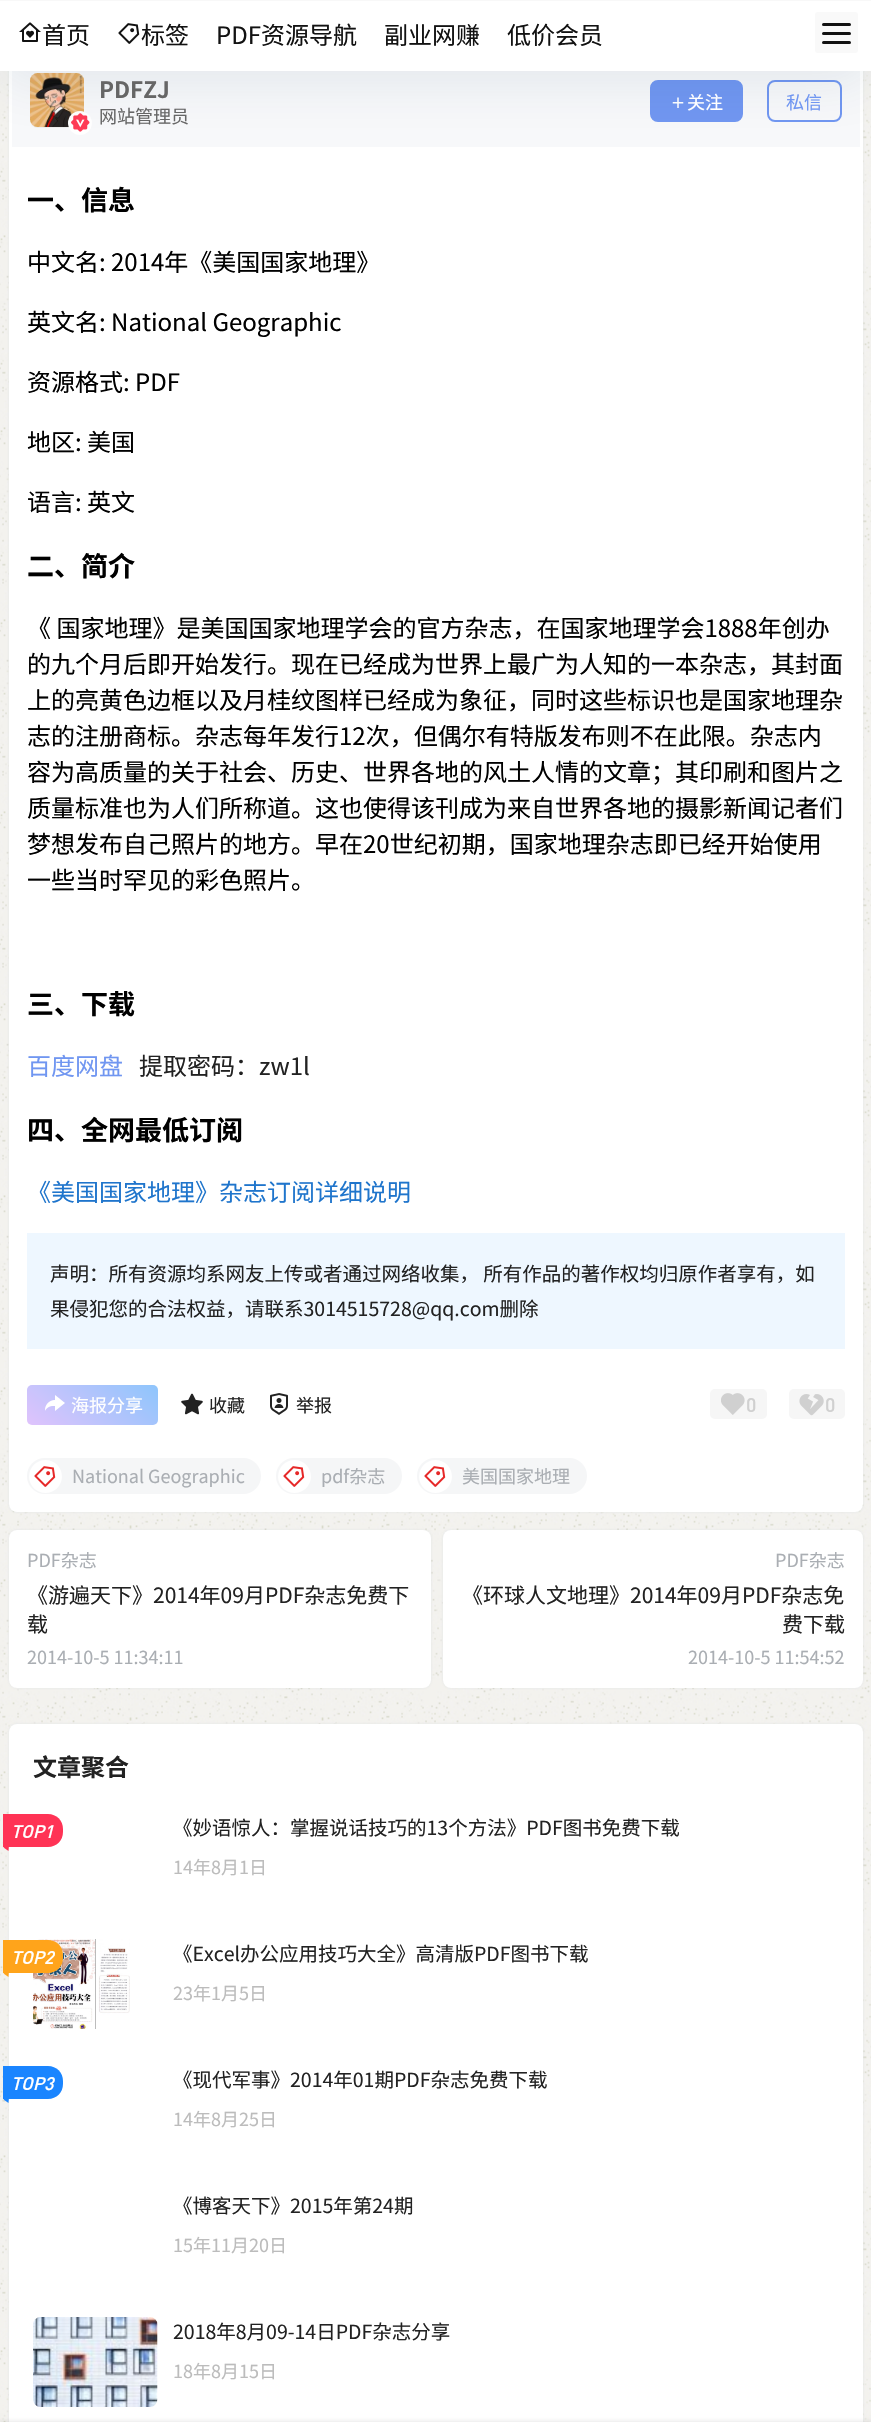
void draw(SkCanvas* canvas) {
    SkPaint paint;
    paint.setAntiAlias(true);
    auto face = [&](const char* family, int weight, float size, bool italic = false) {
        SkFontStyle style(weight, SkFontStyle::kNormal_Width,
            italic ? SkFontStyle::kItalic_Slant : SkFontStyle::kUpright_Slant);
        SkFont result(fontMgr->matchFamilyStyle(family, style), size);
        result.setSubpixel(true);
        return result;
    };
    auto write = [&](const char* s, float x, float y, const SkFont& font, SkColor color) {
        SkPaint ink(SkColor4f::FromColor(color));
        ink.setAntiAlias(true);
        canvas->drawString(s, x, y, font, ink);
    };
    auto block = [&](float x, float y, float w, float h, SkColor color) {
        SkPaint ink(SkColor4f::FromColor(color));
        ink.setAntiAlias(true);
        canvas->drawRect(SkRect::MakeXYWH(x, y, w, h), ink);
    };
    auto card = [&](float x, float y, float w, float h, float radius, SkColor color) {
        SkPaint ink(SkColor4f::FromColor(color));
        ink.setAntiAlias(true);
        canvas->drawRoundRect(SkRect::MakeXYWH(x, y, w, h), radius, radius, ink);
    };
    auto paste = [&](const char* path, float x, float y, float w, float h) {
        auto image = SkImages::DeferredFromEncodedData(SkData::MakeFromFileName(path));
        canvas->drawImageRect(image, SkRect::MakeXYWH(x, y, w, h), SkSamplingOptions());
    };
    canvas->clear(SK_ColorWHITE);
    paste("pic1.png", 0, 71, 871, 2351);
    paint.setColor(SkColorSetARGB(26, 98, 124, 153));
    paint.setMaskFilter(SkMaskFilter::MakeBlur(kNormal_SkBlurStyle, 1.5f));
    canvas->drawRoundRect(SkRect::MakeXYWH(9, -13, 854, 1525), 8, 8, paint);
    paint.setMaskFilter(nullptr);
    card(9, -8, 854, 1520, 8, SK_ColorWHITE);
    block(12, 71, 848, 76, SkColorSetRGB(247, 248, 250));
    card(30, 74, 54, 54, 8, SkColorSetRGB(238, 238, 238));
    paste("pic4.png", 30, 73, 54, 54);
    paint.setColor(SK_ColorWHITE);
    canvas->drawCircle(80, 123, 12, paint);
    paste("pic5.png", 71, 113, 19, 19);
    paint.setColor(SkColorSetRGB(112, 150, 241));
    canvas->drawRoundRect(SkRect::MakeXYWH(651, 81, 91, 40), 7, 7, paint);
    paint.setStyle(SkPaint::kStroke_Style);
    paint.setStrokeWidth(2);
    canvas->drawRoundRect(SkRect::MakeXYWH(651, 81, 91, 40), 7, 7, paint);
    paste("pic6.png", 672, 97, 12, 11);
    canvas->drawRoundRect(SkRect::MakeXYWH(768, 81, 73, 40), 7, 7, paint);
    paint.setStyle(SkPaint::kFill_Style);
    paint.setColor(SkColorSetARGB(26, 17, 58, 93));
    paint.setMaskFilter(SkMaskFilter::MakeBlur(kNormal_SkBlurStyle, 30));
    canvas->drawRect(SkRect::MakeXYWH(0, -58, 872, 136), paint);
    paint.setMaskFilter(nullptr);
    block(0, 1, 871, 70, SK_ColorWHITE);
    block(0, 0, 871, 1, SkColorSetRGB(248, 248, 248));
    paste("pic2.png", 19, 22, 22, 20);
    auto kFont1 = face("Noto Sans CJK SC", 400, 24);
    write("首页", 42, 44, kFont1, SkColorSetRGB(18, 18, 18));
    paste("pic3.png", 118, 23, 22, 21);
    write("标签", 141, 44, kFont1, SkColorSetRGB(18, 18, 18));
    write("PDF资源导航", 216, 44, kFont1, SkColorSetRGB(18, 18, 18));
    write("副业网赚", 384, 44, kFont1, SkColorSetRGB(18, 18, 18));
    write("低价会员", 507, 44, kFont1, SkColorSetRGB(18, 18, 18));
    card(815, 12, 43, 41, 3, SkColorSetRGB(249, 249, 249));
    card(822, 23, 29, 3, 1.5f, SkColorSetRGB(18, 18, 18));
    card(822, 32, 29, 3, 1.5f, SkColorSetRGB(18, 18, 18));
    card(822, 41, 29, 3, 1.5f, SkColorSetRGB(18, 18, 18));
    auto kFont2 = face("Noto Sans CJK SC", 700, 22.5f);
    write("PDFZJ", 99, 98, kFont2, SkColorSetRGB(102, 102, 102));
    auto kFont3 = face("Noto Sans CJK SC", 400, 18);
    write("网站管理员", 99, 123, kFont3, SkColorSetRGB(102, 102, 102));
    write("关注", 687, 109, kFont3, SK_ColorWHITE);
    write("私信", 786, 109, kFont3, SkColorSetRGB(112, 150, 241));
    auto kFont4 = face("Noto Sans CJK SC", 700, 27);
    write("一、信息", 27, 210, kFont4, SK_ColorBLACK);
    write("中文名: 2014年《美国国家地理》", 27, 271, kFont1, SK_ColorBLACK);
    write("英文名: National Geographic", 27, 331, kFont1, SK_ColorBLACK);
    write("资源格式: PDF", 27, 391, kFont1, SK_ColorBLACK);
    write("地区: 美国", 27, 451, kFont1, SK_ColorBLACK);
    write("语言: 英文", 27, 511, kFont1, SK_ColorBLACK);
    write("二、简介", 27, 576, kFont4, SK_ColorBLACK);
    write("《 国家地理》是美国国家地理学会的官方杂志，在国家地理学会1888年创办", 27, 637, kFont1, SK_ColorBLACK);
    write("的九个月后即开始发行。现在已经成为世界上最广为人知的一本杂志，其封面", 27, 673, kFont1, SK_ColorBLACK);
    write("上的亮黄色边框以及月桂纹图样已经成为象征，同时这些标识也是国家地理杂", 27, 709, kFont1, SK_ColorBLACK);
    write("志的注册商标。杂志每年发行12次，但偶尔有特版发布则不在此限。杂志内", 27, 745, kFont1, SK_ColorBLACK);
    write("容为高质量的关于社会、历史、世界各地的风土人情的文章；其印刷和图片之", 27, 781, kFont1, SK_ColorBLACK);
    write("质量标准也为人们所称道。这也使得该刊成为来自世界各地的摄影新闻记者们", 27, 817, kFont1, SK_ColorBLACK);
    write("梦想发布自己照片的地方。早在20世纪初期，国家地理杂志即已经开始使用", 27, 853, kFont1, SK_ColorBLACK);
    write("一些当时罕见的彩色照片。", 27, 889, kFont1, SK_ColorBLACK);
    write("三、下载", 27, 1014, kFont4, SK_ColorBLACK);
    write("百度网盘", 27, 1075, kFont1, SkColorSetRGB(112, 150, 241));
    write("提取密码：zw1l", 139, 1075, kFont1, SkColorSetRGB(34, 34, 34));
    write("四、全网最低订阅", 27, 1140, kFont4, SK_ColorBLACK);
    write("《美国国家地理》杂志订阅详细说明", 27, 1201, kFont1, SkColorSetRGB(31, 117, 204));
    block(27, 1233, 818, 116, SkColorSetRGB(238, 247, 255));
    auto kFont5 = face("Noto Sans CJK SC", 400, 19.5f);
    write("声明：所有资源均系网友上传或者通过网络收集， 所有作品的著作权均归原作者享有，如", 50, 1281, kFont5, SkColorSetRGB(34, 34, 34));
    write("果侵犯您的合法权益，请联系3014515728@qq.com删除", 50, 1316, kFont5, SkColorSetRGB(34, 34, 34));
    {
        const SkColor colors[] = {SkColorSetRGB(224, 195, 252), SkColorSetRGB(142, 197, 252)};
        const float stops[] = {0, 1};
        const SkPoint ends[] = {{55, 1449}, {129, 1361}};
        paint.setShader(SkGradientShader::MakeLinear(ends, colors, stops, 2, SkTileMode::kClamp));
        paint.setAlpha(255);
    }
    canvas->drawRoundRect(SkRect::MakeXYWH(27, 1385, 131, 40), 5, 5, paint);
    paste("pic7.png", 45, 1395, 20, 16);
    write("海报分享", 71, 1412, kFont3, SK_ColorWHITE);
    paste("pic8.png", 181, 1393, 22, 22);
    write("收藏", 209, 1412, kFont3, SkColorSetRGB(34, 34, 34));
    paste("pic9.png", 270, 1393, 18, 22);
    write("举报", 296, 1412, kFont3, SkColorSetRGB(34, 34, 34));
    card(710, 1389, 57, 30, 5, SkColorSetRGB(246, 246, 246));
    paste("pic10.png", 721, 1393, 24, 22);
    auto kFont6 = face("DIN", 500, 19.5f);
    write("0", 746, 1412, kFont6, SkColorSetRGB(208, 208, 208));
    card(789, 1389, 56, 30, 5, SkColorSetRGB(246, 246, 246));
    paste("pic11.png", 799, 1394, 25, 22);
    write("0", 825, 1412, kFont6, SkColorSetRGB(208, 208, 208));
    card(27, 1458, 234, 36, 18, SkColorSetRGB(245, 246, 247));
    paint.setShader(nullptr);
    paint.setColor(SK_ColorWHITE);
    canvas->drawCircle(45.5f, 1476.5f, 16.5f, paint);
    paste("pic12.png", 34, 1466, 22, 21);
    write("National Geographic", 72, 1483, kFont3, SkColorSetRGB(170, 174, 179));
    card(276, 1458, 126, 36, 18, SkColorSetRGB(245, 246, 247));
    canvas->drawCircle(294.5f, 1476.5f, 16.5f, paint);
    paste("pic12.png", 283, 1466, 22, 21);
    write("pdf杂志", 321, 1483, kFont3, SkColorSetRGB(170, 174, 179));
    card(417, 1458, 170, 36, 18, SkColorSetRGB(245, 246, 247));
    canvas->drawCircle(435.5f, 1476.5f, 16.5f, paint);
    paste("pic12.png", 424, 1466, 22, 21);
    write("美国国家地理", 462, 1483, kFont3, SkColorSetRGB(170, 174, 179));
    paint.setColor(SkColorSetARGB(26, 98, 124, 153));
    paint.setMaskFilter(SkMaskFilter::MakeBlur(kNormal_SkBlurStyle, 1.5f));
    canvas->drawRoundRect(SkRect::MakeXYWH(9, 1530, 422, 158), 8, 8, paint);
    paint.setMaskFilter(nullptr);
    card(9, 1530, 422, 158, 8, SK_ColorWHITE);
    write("PDF杂志", 27, 1567, kFont3, SkColorSetRGB(170, 174, 179));
    auto kFont7 = face("Noto Sans CJK SC", 400, 21);
    write("《游遍天下》2014年09月PDF杂志免费下", 27, 1603, kFont7, SkColorSetRGB(34, 34, 34));
    write("载", 27, 1632, kFont7, SkColorSetRGB(34, 34, 34));
    write("2014-10-5 11:34:11", 27, 1664, kFont3, SkColorSetRGB(170, 174, 179));
    paint.setMaskFilter(SkMaskFilter::MakeBlur(kNormal_SkBlurStyle, 1.5f));
    canvas->drawRoundRect(SkRect::MakeXYWH(443, 1530, 420, 158), 8, 8, paint);
    paint.setMaskFilter(nullptr);
    card(443, 1530, 420, 158, 8, SK_ColorWHITE);
    write("PDF杂志", 775, 1567, kFont3, SkColorSetRGB(170, 174, 179));
    write("《环球人文地理》2014年09月PDF杂志免", 462, 1603, kFont7, SkColorSetRGB(34, 34, 34));
    write("费下载", 782, 1632, kFont7, SkColorSetRGB(34, 34, 34));
    write("2014-10-5 11:54:52", 688, 1664, kFont3, SkColorSetRGB(170, 174, 179));
    paint.setMaskFilter(SkMaskFilter::MakeBlur(kNormal_SkBlurStyle, 1.5f));
    canvas->drawRoundRect(SkRect::MakeXYWH(9, 1724, 854, 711), 8, 8, paint);
    paint.setMaskFilter(nullptr);
    card(9, 1724, 854, 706, 8, SK_ColorWHITE);
    auto kFont8 = face("Noto Sans CJK SC", 700, 24);
    write("文章聚合", 33, 1776, kFont8, SkColorSetRGB(34, 34, 34));
    paint.setColor(SkColorSetRGB(255, 51, 85));
    canvas->drawPath(SkPathBuilder().moveTo(3, 1814).lineTo(48, 1814).cubicTo(56.5f, 1814, 63, 1820.5f, 63, 1829).lineTo(63, 1832).cubicTo(63, 1840.5f, 56.5f, 1847, 48, 1847).lineTo(3, 1847).close().detach(), paint);
    auto kFont9 = face("DIN", 500, 18, true);
    write("TOP1", 11, 1838, kFont9, SK_ColorWHITE);
    canvas->drawPath(SkPathBuilder().moveTo(8.5f, 1851).lineTo(3.5f, 1847.5f).lineTo(9, 1844.5f).close().detach(), paint);
    write("《妙语惊人：掌握说话技巧的13个方法》PDF图书免费下载", 173, 1835, kFont5, SkColorSetRGB(34, 34, 34));
    write("14年8月1日", 173, 1874, kFont3, SkColorSetRGB(188, 188, 188));
    paste("pic13.png", 33, 1939, 97, 90);
    paint.setColor(SkColorSetRGB(255, 164, 27));
    canvas->drawPath(SkPathBuilder().moveTo(3, 1940).lineTo(48, 1940).cubicTo(56.5f, 1940, 63, 1946.5f, 63, 1955).lineTo(63, 1958).cubicTo(63, 1966.5f, 56.5f, 1973, 48, 1973).lineTo(3, 1973).close().detach(), paint);
    write("TOP2", 11, 1964, kFont9, SK_ColorWHITE);
    canvas->drawPath(SkPathBuilder().moveTo(8.5f, 1977).lineTo(3.5f, 1973.5f).lineTo(9, 1970.5f).close().detach(), paint);
    write("《Excel办公应用技巧大全》高清版PDF图书下载", 173, 1961, kFont5, SkColorSetRGB(34, 34, 34));
    write("23年1月5日", 173, 2000, kFont3, SkColorSetRGB(188, 188, 188));
    paint.setColor(SkColorSetRGB(26, 133, 255));
    canvas->drawPath(SkPathBuilder().moveTo(3, 2066).lineTo(48, 2066).cubicTo(56.5f, 2066, 63, 2072.5f, 63, 2081).lineTo(63, 2084).cubicTo(63, 2092.5f, 56.5f, 2099, 48, 2099).lineTo(3, 2099).close().detach(), paint);
    write("TOP3", 11, 2090, kFont9, SK_ColorWHITE);
    canvas->drawPath(SkPathBuilder().moveTo(8.5f, 2103).lineTo(3.5f, 2099.5f).lineTo(9, 2096.5f).close().detach(), paint);
    write("《现代军事》2014年01期PDF杂志免费下载", 173, 2087, kFont5, SkColorSetRGB(34, 34, 34));
    write("14年8月25日", 173, 2126, kFont3, SkColorSetRGB(188, 188, 188));
    write("《博客天下》2015年第24期", 173, 2213, kFont5, SkColorSetRGB(34, 34, 34));
    write("15年11月20日", 173, 2252, kFont3, SkColorSetRGB(188, 188, 188));
    paste("pic14.png", 33, 2317, 125, 90);
    write("2018年8月09-14日PDF杂志分享", 173, 2339, kFont5, SkColorSetRGB(34, 34, 34));
    write("18年8月15日", 173, 2378, kFont3, SkColorSetRGB(188, 188, 188));
    paint.setColor(SkColorSetARGB(26, 26, 26, 26));
    paint.setMaskFilter(SkMaskFilter::MakeBlur(kNormal_SkBlurStyle, 2));
    canvas->drawRect(SkRect::MakeXYWH(0, 2421, 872, 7), paint);
    paint.setMaskFilter(nullptr);
}
